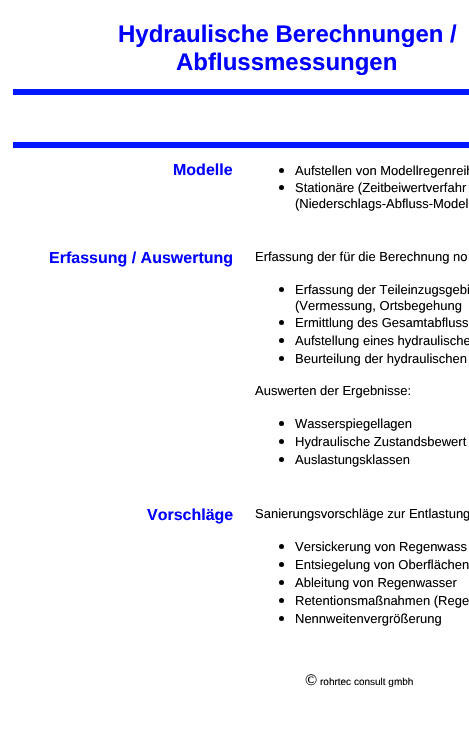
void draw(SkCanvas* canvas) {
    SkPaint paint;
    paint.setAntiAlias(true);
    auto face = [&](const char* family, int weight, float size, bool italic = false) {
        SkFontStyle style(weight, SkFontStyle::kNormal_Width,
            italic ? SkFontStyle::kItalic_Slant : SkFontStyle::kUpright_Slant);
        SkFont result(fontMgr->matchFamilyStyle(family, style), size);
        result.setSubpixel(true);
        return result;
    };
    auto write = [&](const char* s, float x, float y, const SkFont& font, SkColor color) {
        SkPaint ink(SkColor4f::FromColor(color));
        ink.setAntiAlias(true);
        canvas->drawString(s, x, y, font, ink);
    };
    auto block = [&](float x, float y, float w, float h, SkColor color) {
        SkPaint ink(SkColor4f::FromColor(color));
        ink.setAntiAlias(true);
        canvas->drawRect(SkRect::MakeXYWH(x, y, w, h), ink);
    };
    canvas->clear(SK_ColorWHITE);
    auto kFont1 = face("Liberation Sans", 700, 24);
    write("Hydraulische Berechnungen /", 118, 42, kFont1, SkColorSetRGB(0, 0, 255));
    write("Abflussmessungen", 176, 70, kFont1, SkColorSetRGB(0, 0, 255));
    block(13, 89, 456, 6, SkColorSetRGB(0, 24, 255));
    block(13, 142, 456, 6, SkColorSetRGB(0, 24, 255));
    auto kFont2 = face("Liberation Sans", 700, 16);
    write("Modelle", 173, 175, kFont2, SkColorSetRGB(0, 0, 255));
    paint.setColor(SK_ColorBLACK);
    canvas->drawCircle(281.5f, 170.5f, 2.5f, paint);
    auto kFont3 = face("Liberation Sans", 400, 13);
    write("Aufstellen von Modellregenreih", 295, 175, kFont3, SK_ColorBLACK);
    canvas->drawCircle(281.5f, 187.5f, 2.5f, paint);
    write("Stationäre (Zeitbeiwertverfahr", 295, 192, kFont3, SK_ColorBLACK);
    write("(Niederschlags-Abfluss-Model", 295, 208, kFont3, SK_ColorBLACK);
    write("Erfassung / Auswertung", 49, 263, kFont2, SkColorSetRGB(0, 0, 255));
    write("Erfassung der für die Berechnung no", 255, 261, kFont3, SK_ColorBLACK);
    canvas->drawCircle(281.5f, 289.5f, 2.5f, paint);
    write("Erfassung der Teileinzugsgebi", 295, 294, kFont3, SK_ColorBLACK);
    write("(Vermessung, Ortsbegehung", 295, 310, kFont3, SK_ColorBLACK);
    canvas->drawCircle(281.5f, 322.5f, 2.5f, paint);
    write("Ermittlung des Gesamtabfluss", 295, 327, kFont3, SK_ColorBLACK);
    canvas->drawCircle(281.5f, 340.5f, 2.5f, paint);
    write("Aufstellung eines hydraulische", 295, 345, kFont3, SK_ColorBLACK);
    canvas->drawCircle(281.5f, 358.5f, 2.5f, paint);
    write("Beurteilung der hydraulischen", 295, 363, kFont3, SK_ColorBLACK);
    write("Auswerten der Ergebnisse:", 255, 395, kFont3, SK_ColorBLACK);
    canvas->drawCircle(281.5f, 423.5f, 2.5f, paint);
    write("Wasserspiegellagen", 295, 428, kFont3, SK_ColorBLACK);
    canvas->drawCircle(281.5f, 441.5f, 2.5f, paint);
    write("Hydraulische Zustandsbewert", 295, 446, kFont3, SK_ColorBLACK);
    canvas->drawCircle(281.5f, 459.5f, 2.5f, paint);
    write("Auslastungsklassen", 295, 464, kFont3, SK_ColorBLACK);
    write("Vorschläge", 147, 520, kFont2, SkColorSetRGB(0, 0, 255));
    write("Sanierungsvorschläge zur Entlastung", 255, 518, kFont3, SK_ColorBLACK);
    canvas->drawCircle(281.5f, 546.5f, 2.5f, paint);
    write("Versickerung von Regenwass", 295, 551, kFont3, SK_ColorBLACK);
    canvas->drawCircle(281.5f, 564.5f, 2.5f, paint);
    write("Entsiegelung von Oberflächen", 295, 569, kFont3, SK_ColorBLACK);
    canvas->drawCircle(281.5f, 582.5f, 2.5f, paint);
    write("Ableitung von Regenwasser", 295, 587, kFont3, SK_ColorBLACK);
    canvas->drawCircle(281.5f, 600.5f, 2.5f, paint);
    write("Retentionsmaßnahmen (Rege", 295, 605, kFont3, SK_ColorBLACK);
    canvas->drawCircle(281.5f, 618.5f, 2.5f, paint);
    write("Nennweitenvergrößerung", 295, 623, kFont3, SK_ColorBLACK);
    auto kFont4 = face("Liberation Serif", 400, 16);
    write("©", 305, 685, kFont4, SK_ColorBLACK);
    auto kFont5 = face("Liberation Sans", 400, 10);
    write("rohrtec consult gmbh", 320, 685, kFont5, SK_ColorBLACK);
}
